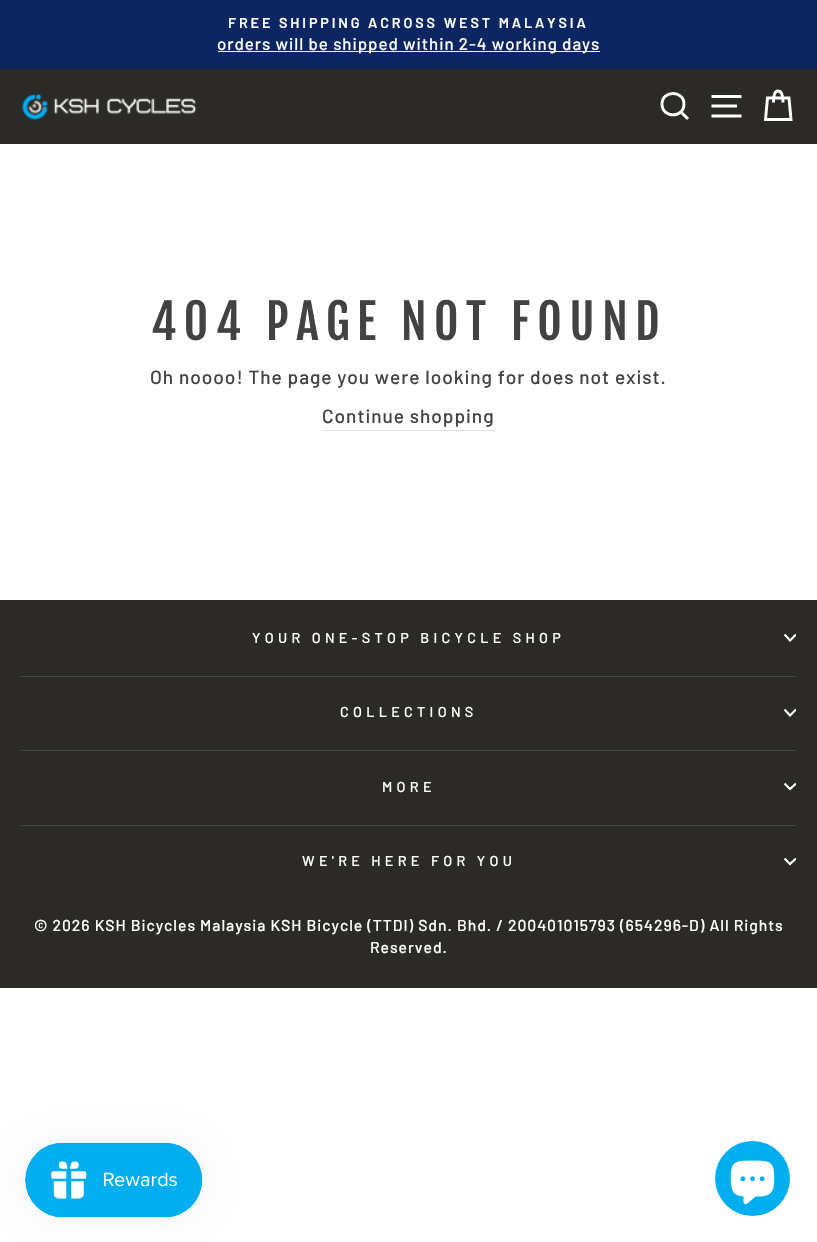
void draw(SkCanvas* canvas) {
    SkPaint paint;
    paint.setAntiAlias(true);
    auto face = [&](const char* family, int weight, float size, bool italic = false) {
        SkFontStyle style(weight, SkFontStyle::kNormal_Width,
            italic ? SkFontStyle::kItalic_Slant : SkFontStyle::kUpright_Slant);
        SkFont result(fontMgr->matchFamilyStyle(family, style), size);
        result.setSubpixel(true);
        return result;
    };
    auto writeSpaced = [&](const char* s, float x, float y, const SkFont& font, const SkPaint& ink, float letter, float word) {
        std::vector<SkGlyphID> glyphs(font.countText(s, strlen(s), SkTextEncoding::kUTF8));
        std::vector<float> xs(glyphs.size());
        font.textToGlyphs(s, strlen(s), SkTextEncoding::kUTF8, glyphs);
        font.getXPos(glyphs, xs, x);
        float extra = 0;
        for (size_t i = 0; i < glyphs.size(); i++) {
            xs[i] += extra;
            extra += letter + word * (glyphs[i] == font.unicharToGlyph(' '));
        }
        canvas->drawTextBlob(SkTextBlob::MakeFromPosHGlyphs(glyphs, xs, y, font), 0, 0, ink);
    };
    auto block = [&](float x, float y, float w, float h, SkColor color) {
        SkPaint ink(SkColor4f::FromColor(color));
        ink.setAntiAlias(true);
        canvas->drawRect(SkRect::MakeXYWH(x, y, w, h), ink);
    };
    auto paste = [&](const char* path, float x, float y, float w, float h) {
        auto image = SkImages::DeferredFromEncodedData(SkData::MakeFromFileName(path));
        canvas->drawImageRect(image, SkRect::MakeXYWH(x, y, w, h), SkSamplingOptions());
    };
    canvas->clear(SK_ColorWHITE);
    block(0, 0, 817, 69, SkColorSetRGB(11, 38, 96));
    auto kFont1 = face("Barlow", 600, 14.35f);
    paint.setColor(SK_ColorWHITE);
    writeSpaced("FREE SHIPPING ACROSS WEST MALAYSIA", 228, 28, kFont1, paint, 2.85f, 0);
    block(218, 51, 382, 1, SK_ColorWHITE);
    auto kFont2 = face("Barlow", 500, 16.9f);
    writeSpaced("orders will be shipped within 2-4 working days", 217, 50, kFont2, paint, 0.95f, 0);
    block(0, 69, 817, 75, SkColorSetRGB(43, 42, 39));
    paste("pic1.png", 22, 93, 175, 28);
    paint.setStyle(SkPaint::kStroke_Style);
    paint.setStrokeWidth(2.9f);
    canvas->drawPath(SkPathBuilder().moveTo(684, 104).cubicTo(684, 118.5f, 662, 118.5f, 662, 104).cubicTo(662, 90, 684, 90, 684, 104).close().moveTo(688, 119).lineTo(681, 112).detach(), paint);
    canvas->drawPath(SkPathBuilder().moveTo(711.5f, 96.5f).lineTo(741.5f, 96.5f).moveTo(711.5f, 106).lineTo(737, 106).moveTo(711.5f, 116).lineTo(741.5f, 116).detach(), paint);
    canvas->drawPath(SkPathBuilder().moveTo(773.5f, 102.5f).cubicTo(773.5f, 93.5f, 775.5f, 91, 778, 91).cubicTo(780.5f, 91, 783, 93.5f, 783, 102.5f).moveTo(767.5f, 98).lineTo(789, 98).lineTo(791, 119.5f).lineTo(765.5f, 119.5f).close().detach(), paint);
    auto kFont3 = face("Fjalla One", 400, 47.75f);
    paint.setStyle(SkPaint::kFill_Style);
    paint.setColor(SkColorSetRGB(67, 65, 65));
    writeSpaced("404 PAGE NOT FOUND", 151, 340, kFont3, paint, 7.2f, 0);
    auto kFont4 = face("Barlow", 500, 19.1f);
    writeSpaced("Oh noooo! The page you were looking for does not exist.", 150, 384, kFont4, paint, 0.95f, 0);
    block(323, 430, 172, 1, SkColorSetRGB(227, 227, 227));
    writeSpaced("Continue shopping", 322, 423, kFont4, paint, 0.95f, 0);
    block(0, 600, 817, 388, SkColorSetRGB(43, 42, 39));
    auto kFont5 = face("Barlow", 500, 14.35f);
    paint.setColor(SK_ColorWHITE);
    writeSpaced("YOUR ONE-STOP BICYCLE SHOP", 252, 643, kFont5, paint, 4.3f, 0);
    canvas->save();
    canvas->clipRect(SkRect::MakeXYWH(784, 631, 12, 13));
    paint.setStyle(SkPaint::kStroke_Style);
    paint.setStrokeWidth(2.2f);
    canvas->drawPath(SkPathBuilder().moveTo(784.5f, 634.5f).lineTo(790, 640.5f).lineTo(796, 634.5f).detach(), paint);
    canvas->restore();
    block(21, 676, 775, 1, SkColorSetRGB(68, 68, 65));
    paint.setStyle(SkPaint::kFill_Style);
    writeSpaced("COLLECTIONS", 340, 717, kFont5, paint, 4.3f, 0);
    canvas->save();
    canvas->clipRect(SkRect::MakeXYWH(784, 706, 12, 13));
    paint.setStyle(SkPaint::kStroke_Style);
    canvas->drawPath(SkPathBuilder().moveTo(784.5f, 709.5f).lineTo(790, 715.5f).lineTo(796, 709.5f).detach(), paint);
    canvas->restore();
    block(21, 750, 775, 1, SkColorSetRGB(68, 68, 65));
    paint.setStyle(SkPaint::kFill_Style);
    writeSpaced("MORE", 382, 792, kFont5, paint, 4.3f, 0);
    canvas->save();
    canvas->clipRect(SkRect::MakeXYWH(784, 780, 12, 13));
    paint.setStyle(SkPaint::kStroke_Style);
    canvas->drawPath(SkPathBuilder().moveTo(784.5f, 783.5f).lineTo(790, 789).lineTo(796, 783.5f).detach(), paint);
    canvas->restore();
    block(21, 825, 775, 1, SkColorSetRGB(68, 68, 65));
    paint.setStyle(SkPaint::kFill_Style);
    writeSpaced("WE'RE HERE FOR YOU", 302, 866, kFont5, paint, 4.3f, 0);
    canvas->save();
    canvas->clipRect(SkRect::MakeXYWH(784, 855, 12, 13));
    paint.setStyle(SkPaint::kStroke_Style);
    canvas->drawPath(SkPathBuilder().moveTo(784.5f, 858.5f).lineTo(790, 864).lineTo(796, 858.5f).detach(), paint);
    canvas->restore();
    auto kFont6 = face("Barlow", 500, 15.75f);
    paint.setStyle(SkPaint::kFill_Style);
    writeSpaced("© 2026 KSH Bicycles Malaysia KSH Bicycle (TTDI) Sdn. Bhd. / 200401015793 (654296-D) All Rights", 34, 931, kFont6, paint, 0.95f, 0);
    writeSpaced("Reserved.", 370, 953, kFont6, paint, 0.95f, 0);
    paint.setColor(SkColorSetARGB(13, 0, 0, 0));
    paint.setMaskFilter(SkMaskFilter::MakeBlur(kNormal_SkBlurStyle, 15.5f));
    canvas->drawRoundRect(SkRect::MakeXYWH(25, 1143, 178, 75), 37.5f, 37.5f, paint);
    paint.setMaskFilter(nullptr);
    paste("pic2.png", 25, 1142, 178, 76);
    paint.setColor(SkColorSetRGB(1, 174, 239));
    canvas->drawCircle(752.5f, 1178.5f, 37.5f, paint);
    paste("pic3.png", 730, 1160, 45, 45);
}
